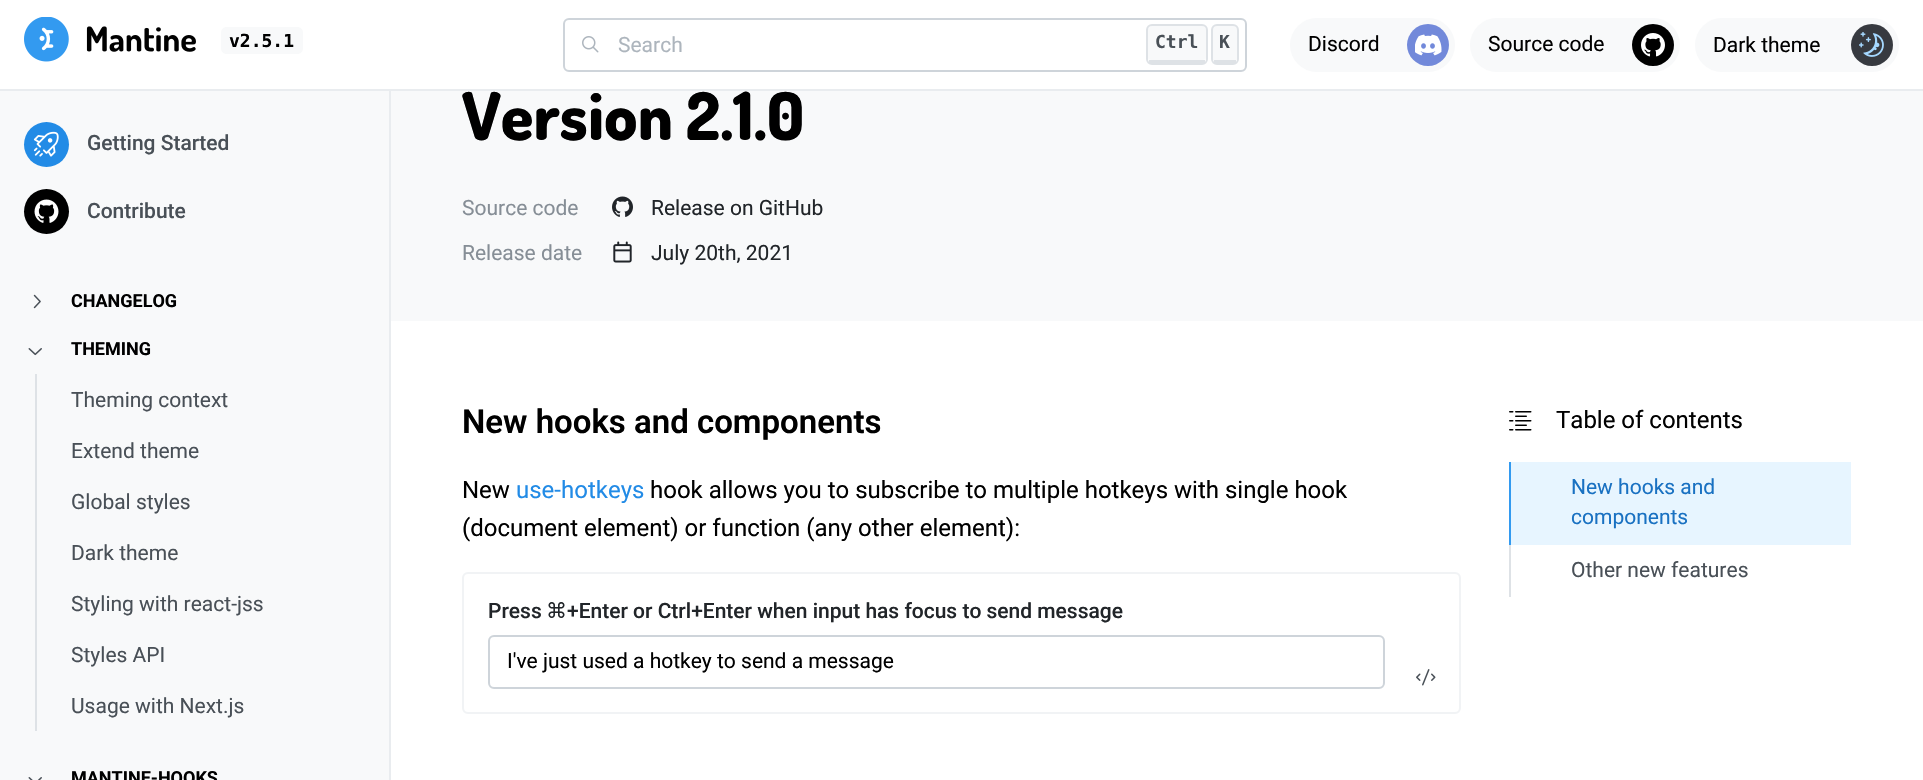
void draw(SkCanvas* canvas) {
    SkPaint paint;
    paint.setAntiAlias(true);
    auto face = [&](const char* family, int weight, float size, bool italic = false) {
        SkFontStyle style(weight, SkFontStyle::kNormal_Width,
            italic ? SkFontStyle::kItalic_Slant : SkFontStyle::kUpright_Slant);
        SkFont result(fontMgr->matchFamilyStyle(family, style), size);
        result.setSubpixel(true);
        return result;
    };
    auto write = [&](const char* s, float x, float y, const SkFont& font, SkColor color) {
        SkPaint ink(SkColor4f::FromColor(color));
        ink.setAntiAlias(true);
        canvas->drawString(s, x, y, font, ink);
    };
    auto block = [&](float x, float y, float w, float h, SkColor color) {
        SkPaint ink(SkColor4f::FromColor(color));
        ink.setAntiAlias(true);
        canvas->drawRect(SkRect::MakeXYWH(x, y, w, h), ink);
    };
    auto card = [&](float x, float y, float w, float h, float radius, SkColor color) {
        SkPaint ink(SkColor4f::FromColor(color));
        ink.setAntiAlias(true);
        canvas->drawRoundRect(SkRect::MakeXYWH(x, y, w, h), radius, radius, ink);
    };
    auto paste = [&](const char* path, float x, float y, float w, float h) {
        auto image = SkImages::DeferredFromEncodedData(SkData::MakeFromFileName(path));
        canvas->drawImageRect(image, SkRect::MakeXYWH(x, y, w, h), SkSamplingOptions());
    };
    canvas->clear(SK_ColorWHITE);
    block(0, 89, 1923, 2, SkColorSetRGB(233, 236, 239));
    paste("pic1.png", 24, 17, 172, 45);
    paint.setColor(SkColorSetRGB(248, 249, 250));
    canvas->drawPath(SkPathBuilder().moveTo(227, 27).lineTo(240, 27).lineTo(240, 54).lineTo(227, 54).cubicTo(223.5f, 54, 221, 51.5f, 221, 48).lineTo(221, 33).cubicTo(221, 29.5f, 223.5f, 27, 227, 27).close().detach(), paint);
    canvas->drawPath(SkPathBuilder().moveTo(240, 27).lineTo(297, 27).cubicTo(300.5f, 27, 303, 29.5f, 303, 33).lineTo(303, 48).cubicTo(303, 51.5f, 300.5f, 54, 297, 54).lineTo(240, 54).close().detach(), paint);
    auto kFont1 = face("DejaVu Sans Mono", 700, 18);
    write("v2.5.1", 229, 47, kFont1, SK_ColorBLACK);
    paint.setStyle(SkPaint::kStroke_Style);
    paint.setStrokeWidth(2);
    paint.setColor(SkColorSetRGB(206, 212, 218));
    canvas->drawRoundRect(SkRect::MakeXYWH(564, 19, 682, 52), 5, 5, paint);
    paste("pic2.png", 582, 36, 17, 17);
    auto kFont2 = face("Roboto", 400, 21);
    write("Search", 618, 52, kFont2, SkColorSetRGB(173, 181, 189));
    paint.setStyle(SkPaint::kFill_Style);
    paint.setColor(SkColorSetRGB(248, 249, 250));
    canvas->drawPath(SkPathBuilder().moveTo(1152, 26).lineTo(1202, 26).cubicTo(1204, 26, 1206, 28, 1206, 30).lineTo(1206, 58).cubicTo(1206, 59, 1204, 60, 1202, 60).lineTo(1152, 60).cubicTo(1150, 60, 1148, 59, 1148, 58).lineTo(1148, 30).cubicTo(1148, 28, 1150, 26, 1152, 26).close().detach(), paint);
    paint.setStyle(SkPaint::kStroke_Style);
    paint.setColor(SkColorSetRGB(222, 226, 230));
    canvas->drawRoundRect(SkRect::MakeXYWH(1147, 25, 60, 39), 5, 5, paint);
    block(1149, 60, 56, 3, SkColorSetRGB(222, 226, 230));
    write("Ctrl", 1155, 48, kFont1, SkColorSetRGB(73, 80, 87));
    paint.setStyle(SkPaint::kFill_Style);
    paint.setColor(SkColorSetRGB(248, 249, 250));
    canvas->drawPath(SkPathBuilder().moveTo(1216.5f, 25.5f).lineTo(1233, 25.5f).cubicTo(1235.5f, 25.5f, 1237.5f, 27.5f, 1237.5f, 30).lineTo(1237.5f, 58.5f).cubicTo(1237.5f, 59.5f, 1235.5f, 60, 1233, 60).lineTo(1216.5f, 60).cubicTo(1214, 60, 1212, 59.5f, 1212, 58.5f).lineTo(1212, 30).cubicTo(1212, 27.5f, 1214, 25.5f, 1216.5f, 25.5f).close().detach(), paint);
    paint.setStyle(SkPaint::kStroke_Style);
    paint.setColor(SkColorSetRGB(222, 226, 230));
    canvas->drawRoundRect(SkRect::MakeXYWH(1212, 25, 26, 39), 5, 5, paint);
    block(1214, 60, 22, 3, SkColorSetRGB(222, 226, 230));
    write("K", 1219, 48, kFont1, SkColorSetRGB(73, 80, 87));
    card(1290, 18, 165, 54, 27, SkColorSetRGB(248, 249, 250));
    write("Discord", 1308, 51, kFont2, SK_ColorBLACK);
    paint.setStyle(SkPaint::kFill_Style);
    paint.setColor(SkColorSetRGB(114, 137, 218));
    canvas->drawCircle(1428, 45, 21, paint);
    paste("pic3.png", 1415, 34, 27, 22);
    card(1470, 18, 210, 54, 27, SkColorSetRGB(248, 249, 250));
    write("Source code", 1488, 51, kFont2, SK_ColorBLACK);
    paint.setColor(SK_ColorBLACK);
    canvas->drawCircle(1653, 45, 21, paint);
    paste("pic4.png", 1641, 33, 24, 24);
    card(1695, 18, 204, 54, 27, SkColorSetRGB(248, 249, 250));
    write("Dark theme", 1713, 52, kFont2, SK_ColorBLACK);
    paint.setColor(SkColorSetRGB(55, 58, 64));
    canvas->drawCircle(1872, 45, 21, paint);
    paste("pic5.png", 1859, 32, 25, 25);
    block(0, 91, 389, 689, SkColorSetRGB(248, 249, 250));
    block(389, 91, 2, 689, SkColorSetRGB(233, 236, 239));
    paint.setColor(SkColorSetRGB(34, 139, 230));
    canvas->drawCircle(46.5f, 144.5f, 22.5f, paint);
    paste("pic6.png", 33, 131, 26, 26);
    auto kFont3 = face("Roboto", 500, 21);
    write("Getting Started", 87, 150, kFont3, SkColorSetRGB(73, 80, 87));
    paint.setColor(SK_ColorBLACK);
    canvas->drawCircle(46.5f, 211.5f, 22.5f, paint);
    paste("pic7.png", 34, 199, 25, 24);
    write("Contribute", 87, 218, kFont3, SkColorSetRGB(73, 80, 87));
    paste("pic8.png", 33, 294, 8, 15);
    auto kFont4 = face("Roboto", 700, 18);
    write("CHANGELOG", 71, 307, kFont4, SK_ColorBLACK);
    paste("pic9.png", 28, 348, 14, 8);
    write("THEMING", 71, 355, kFont4, SK_ColorBLACK);
    block(35, 374, 2, 357, SkColorSetRGB(222, 226, 230));
    write("Theming context", 71, 407, kFont2, SkColorSetRGB(73, 80, 87));
    write("Extend theme", 71, 458, kFont2, SkColorSetRGB(73, 80, 87));
    write("Global styles", 71, 509, kFont2, SkColorSetRGB(73, 80, 87));
    write("Dark theme", 71, 560, kFont2, SkColorSetRGB(73, 80, 87));
    write("Styling with react-jss", 71, 611, kFont2, SkColorSetRGB(73, 80, 87));
    write("Styles API", 71, 662, kFont2, SkColorSetRGB(73, 80, 87));
    write("Usage with Next.js", 71, 713, kFont2, SkColorSetRGB(73, 80, 87));
    paste("pic10.png", 28, 777, 14, 3);
    write("MANTINE-HOOKS", 71, 784, kFont4, SK_ColorBLACK);
    block(391, 91, 1532, 230, SkColorSetRGB(248, 249, 250));
    auto kFont5 = face("Dosis", 800, 66);
    write("Version 2.1.0", 462, 140, kFont5, SK_ColorBLACK);
    write("Source code", 462, 215, kFont2, SkColorSetRGB(134, 142, 150));
    paste("pic11.png", 612, 196, 21, 21);
    write("Release on GitHub", 651, 215, kFont2, SkColorSetRGB(33, 37, 41));
    write("Release date", 462, 260, kFont2, SkColorSetRGB(134, 142, 150));
    paste("pic12.png", 613, 241, 19, 22);
    write("July 20th, 2021", 651, 260, kFont2, SkColorSetRGB(33, 37, 41));
    auto kFont6 = face("Roboto", 600, 33);
    write("New hooks and components", 462, 433, kFont6, SK_ColorBLACK);
    auto kFont7 = face("Roboto", 400, 24);
    write("New", 462, 498, kFont7, SK_ColorBLACK);
    write("use-hotkeys", 516, 498, kFont7, SkColorSetRGB(34, 139, 230));
    write("hook allows you to subscribe to multiple hotkeys with single hook", 650, 498, kFont7, SK_ColorBLACK);
    write("(document element) or function (any other element):", 462, 536, kFont7, SK_ColorBLACK);
    paint.setStyle(SkPaint::kStroke_Style);
    paint.setColor(SkColorSetRGB(241, 243, 245));
    canvas->drawRoundRect(SkRect::MakeXYWH(463, 573, 997, 140), 5, 5, paint);
    write("Press", 488, 618, kFont3, SkColorSetRGB(33, 37, 41));
    auto kFont8 = face("DejaVu Sans", 400, 21);
    write("⌘", 546, 618, kFont8, SkColorSetRGB(33, 37, 41));
    write("+Enter or Ctrl+Enter when input has focus to send message", 567, 618, kFont3, SkColorSetRGB(33, 37, 41));
    paint.setColor(SkColorSetRGB(206, 212, 218));
    canvas->drawRoundRect(SkRect::MakeXYWH(489, 636, 895, 52), 5, 5, paint);
    write("I've just used a hotkey to send a message", 507, 668, kFont2, SK_ColorBLACK);
    paste("pic13.png", 1416, 669, 20, 17);
    paste("pic14.png", 1509, 411, 23, 20);
    write("Table of contents", 1556, 428, kFont7, SK_ColorBLACK);
    block(1509, 545, 2, 52, SkColorSetRGB(222, 226, 230));
    block(1511, 462, 340, 83, SkColorSetRGB(231, 245, 255));
    block(1509, 462, 2, 83, SkColorSetRGB(51, 154, 240));
    write("New hooks and", 1571, 494, kFont2, SkColorSetRGB(25, 113, 194));
    write("components", 1571, 524, kFont2, SkColorSetRGB(25, 113, 194));
    write("Other new features", 1571, 577, kFont2, SkColorSetRGB(73, 80, 87));
}
